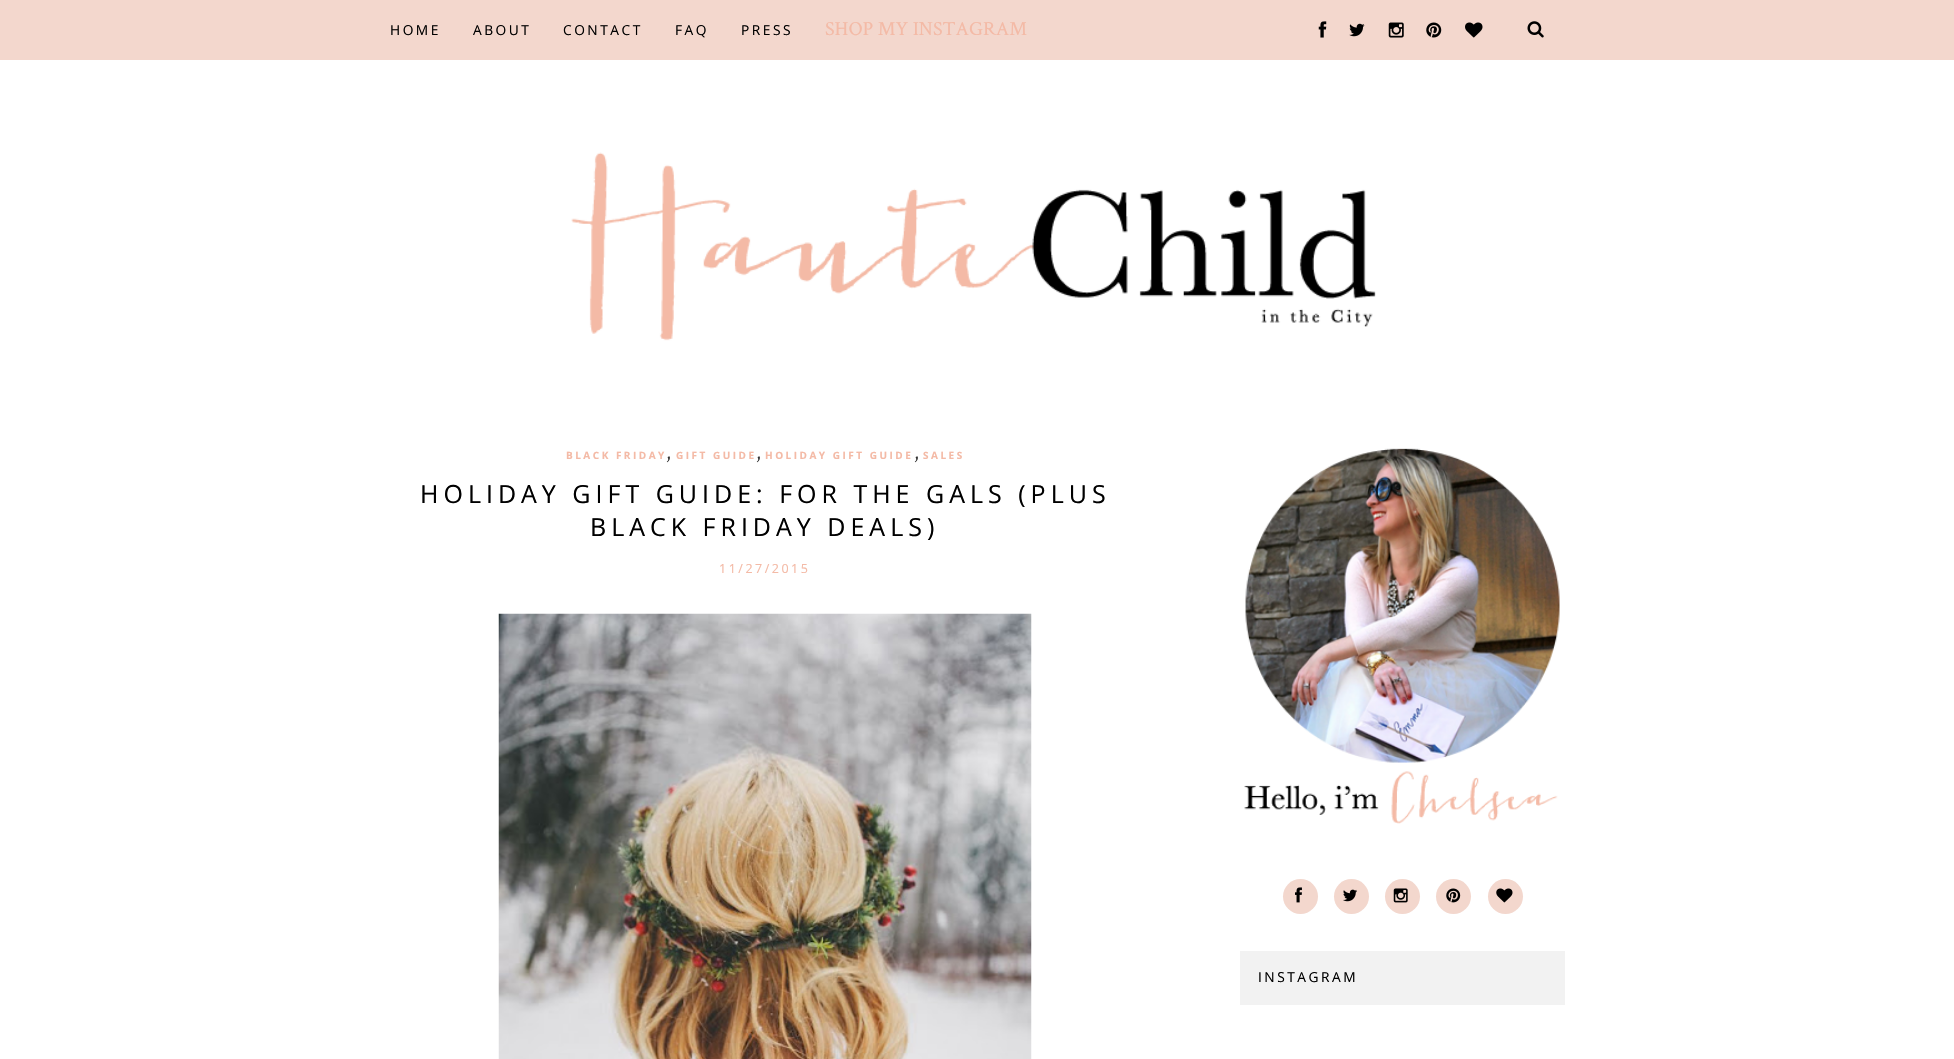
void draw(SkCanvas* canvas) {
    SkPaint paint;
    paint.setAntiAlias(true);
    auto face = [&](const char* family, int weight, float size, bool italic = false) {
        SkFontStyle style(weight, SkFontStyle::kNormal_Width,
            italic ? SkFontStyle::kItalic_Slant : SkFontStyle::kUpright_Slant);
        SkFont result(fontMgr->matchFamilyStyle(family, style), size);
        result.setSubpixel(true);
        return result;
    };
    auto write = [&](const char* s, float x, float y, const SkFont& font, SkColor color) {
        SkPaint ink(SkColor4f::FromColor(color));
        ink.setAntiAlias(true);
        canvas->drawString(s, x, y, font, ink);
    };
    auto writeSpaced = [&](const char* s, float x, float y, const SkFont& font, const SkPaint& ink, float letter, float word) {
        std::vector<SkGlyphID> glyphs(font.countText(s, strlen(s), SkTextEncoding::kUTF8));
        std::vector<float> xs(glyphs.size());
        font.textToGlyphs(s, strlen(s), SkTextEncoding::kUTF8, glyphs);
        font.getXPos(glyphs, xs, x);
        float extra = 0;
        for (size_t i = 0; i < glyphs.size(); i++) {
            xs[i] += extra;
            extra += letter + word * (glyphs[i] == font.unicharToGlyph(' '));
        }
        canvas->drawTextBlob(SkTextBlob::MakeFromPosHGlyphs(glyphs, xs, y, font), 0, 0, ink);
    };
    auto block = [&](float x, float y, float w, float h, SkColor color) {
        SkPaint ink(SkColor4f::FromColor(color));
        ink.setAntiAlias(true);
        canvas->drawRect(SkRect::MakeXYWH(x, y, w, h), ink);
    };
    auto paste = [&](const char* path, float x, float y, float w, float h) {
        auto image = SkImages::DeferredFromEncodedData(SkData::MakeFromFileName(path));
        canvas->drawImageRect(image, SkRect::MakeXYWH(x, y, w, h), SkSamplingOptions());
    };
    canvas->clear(SK_ColorWHITE);
    block(0, 0, 1954, 60, SkColorSetRGB(243, 215, 205));
    auto kFont1 = face("Open Sans", 400, 13.75f);
    paint.setColor(SK_ColorBLACK);
    writeSpaced("HOME", 390, 35, kFont1, paint, 2.5f, 0);
    writeSpaced("ABOUT", 473, 35, kFont1, paint, 2.5f, 0);
    writeSpaced("CONTACT", 563, 35, kFont1, paint, 2.5f, 0);
    writeSpaced("FAQ", 675, 35, kFont1, paint, 2.5f, 0);
    writeSpaced("PRESS", 741, 35, kFont1, paint, 2.5f, 0);
    auto kFont2 = face("Crimson Text", 400, 20);
    write("SHOP MY INSTAGRAM", 825, 35, kFont2, SkColorSetRGB(244, 186, 166));
    paste("pic1.png", 1318, 21, 9, 17);
    paste("pic2.png", 1349, 23, 16, 14);
    paste("pic3.png", 1388, 22, 16, 16);
    paste("pic4.png", 1426, 22, 16, 16);
    paste("pic5.png", 1465, 22, 18, 16);
    paste("pic6.png", 1527, 21, 17, 17);
    paste("pic7.png", 571, 152, 805, 189);
    auto kFont3 = face("Open Sans", 700, 10);
    paint.setColor(SkColorSetRGB(244, 186, 166));
    writeSpaced("BLACK FRIDAY", 566, 459, kFont3, paint, 2.5f, 0);
    write(",", 666, 459, kFont2, SkColorSetRGB(51, 51, 51));
    writeSpaced("GIFT GUIDE", 676, 459, kFont3, paint, 2.5f, 0);
    write(",", 756, 459, kFont2, SkColorSetRGB(51, 51, 51));
    writeSpaced("HOLIDAY GIFT GUIDE", 765, 459, kFont3, paint, 2.5f, 0);
    write(",", 914, 459, kFont2, SkColorSetRGB(51, 51, 51));
    writeSpaced("SALES", 923, 459, kFont3, paint, 2.5f, 0);
    auto kFont4 = face("Open Sans", 400, 25);
    paint.setColor(SK_ColorBLACK);
    writeSpaced("HOLIDAY GIFT GUIDE: FOR THE GALS (PLUS", 420, 503, kFont4, paint, 5, 0);
    writeSpaced("BLACK FRIDAY DEALS)", 590, 536, kFont4, paint, 5, 0);
    auto kFont5 = face("Open Sans", 400, 12.5f);
    paint.setColor(SkColorSetRGB(244, 186, 166));
    writeSpaced("11/27/2015", 719, 573, kFont5, paint, 2.5f, 0);
    paste("pic8.png", 498, 613, 534, 446);
    paste("pic9.png", 1244, 448, 316, 376);
    paint.setColor(SkColorSetRGB(243, 215, 205));
    canvas->drawCircle(1300.5f, 896.5f, 17.5f, paint);
    paste("pic10.png", 1295, 887, 7, 16);
    canvas->drawCircle(1351.5f, 896.5f, 17.5f, paint);
    paste("pic11.png", 1343, 889, 14, 13);
    canvas->drawCircle(1402.5f, 896.5f, 17.5f, paint);
    paste("pic12.png", 1393, 888, 15, 15);
    canvas->drawCircle(1453.5f, 896.5f, 17.5f, paint);
    paste("pic13.png", 1446, 888, 15, 15);
    canvas->drawCircle(1505.5f, 896.5f, 17.5f, paint);
    paste("pic14.png", 1496, 888, 17, 15);
    block(1240, 951, 325, 54, SkColorSetRGB(242, 242, 242));
    paint.setColor(SK_ColorBLACK);
    writeSpaced("INSTAGRAM", 1258, 982, kFont1, paint, 2.5f, 0);
}
